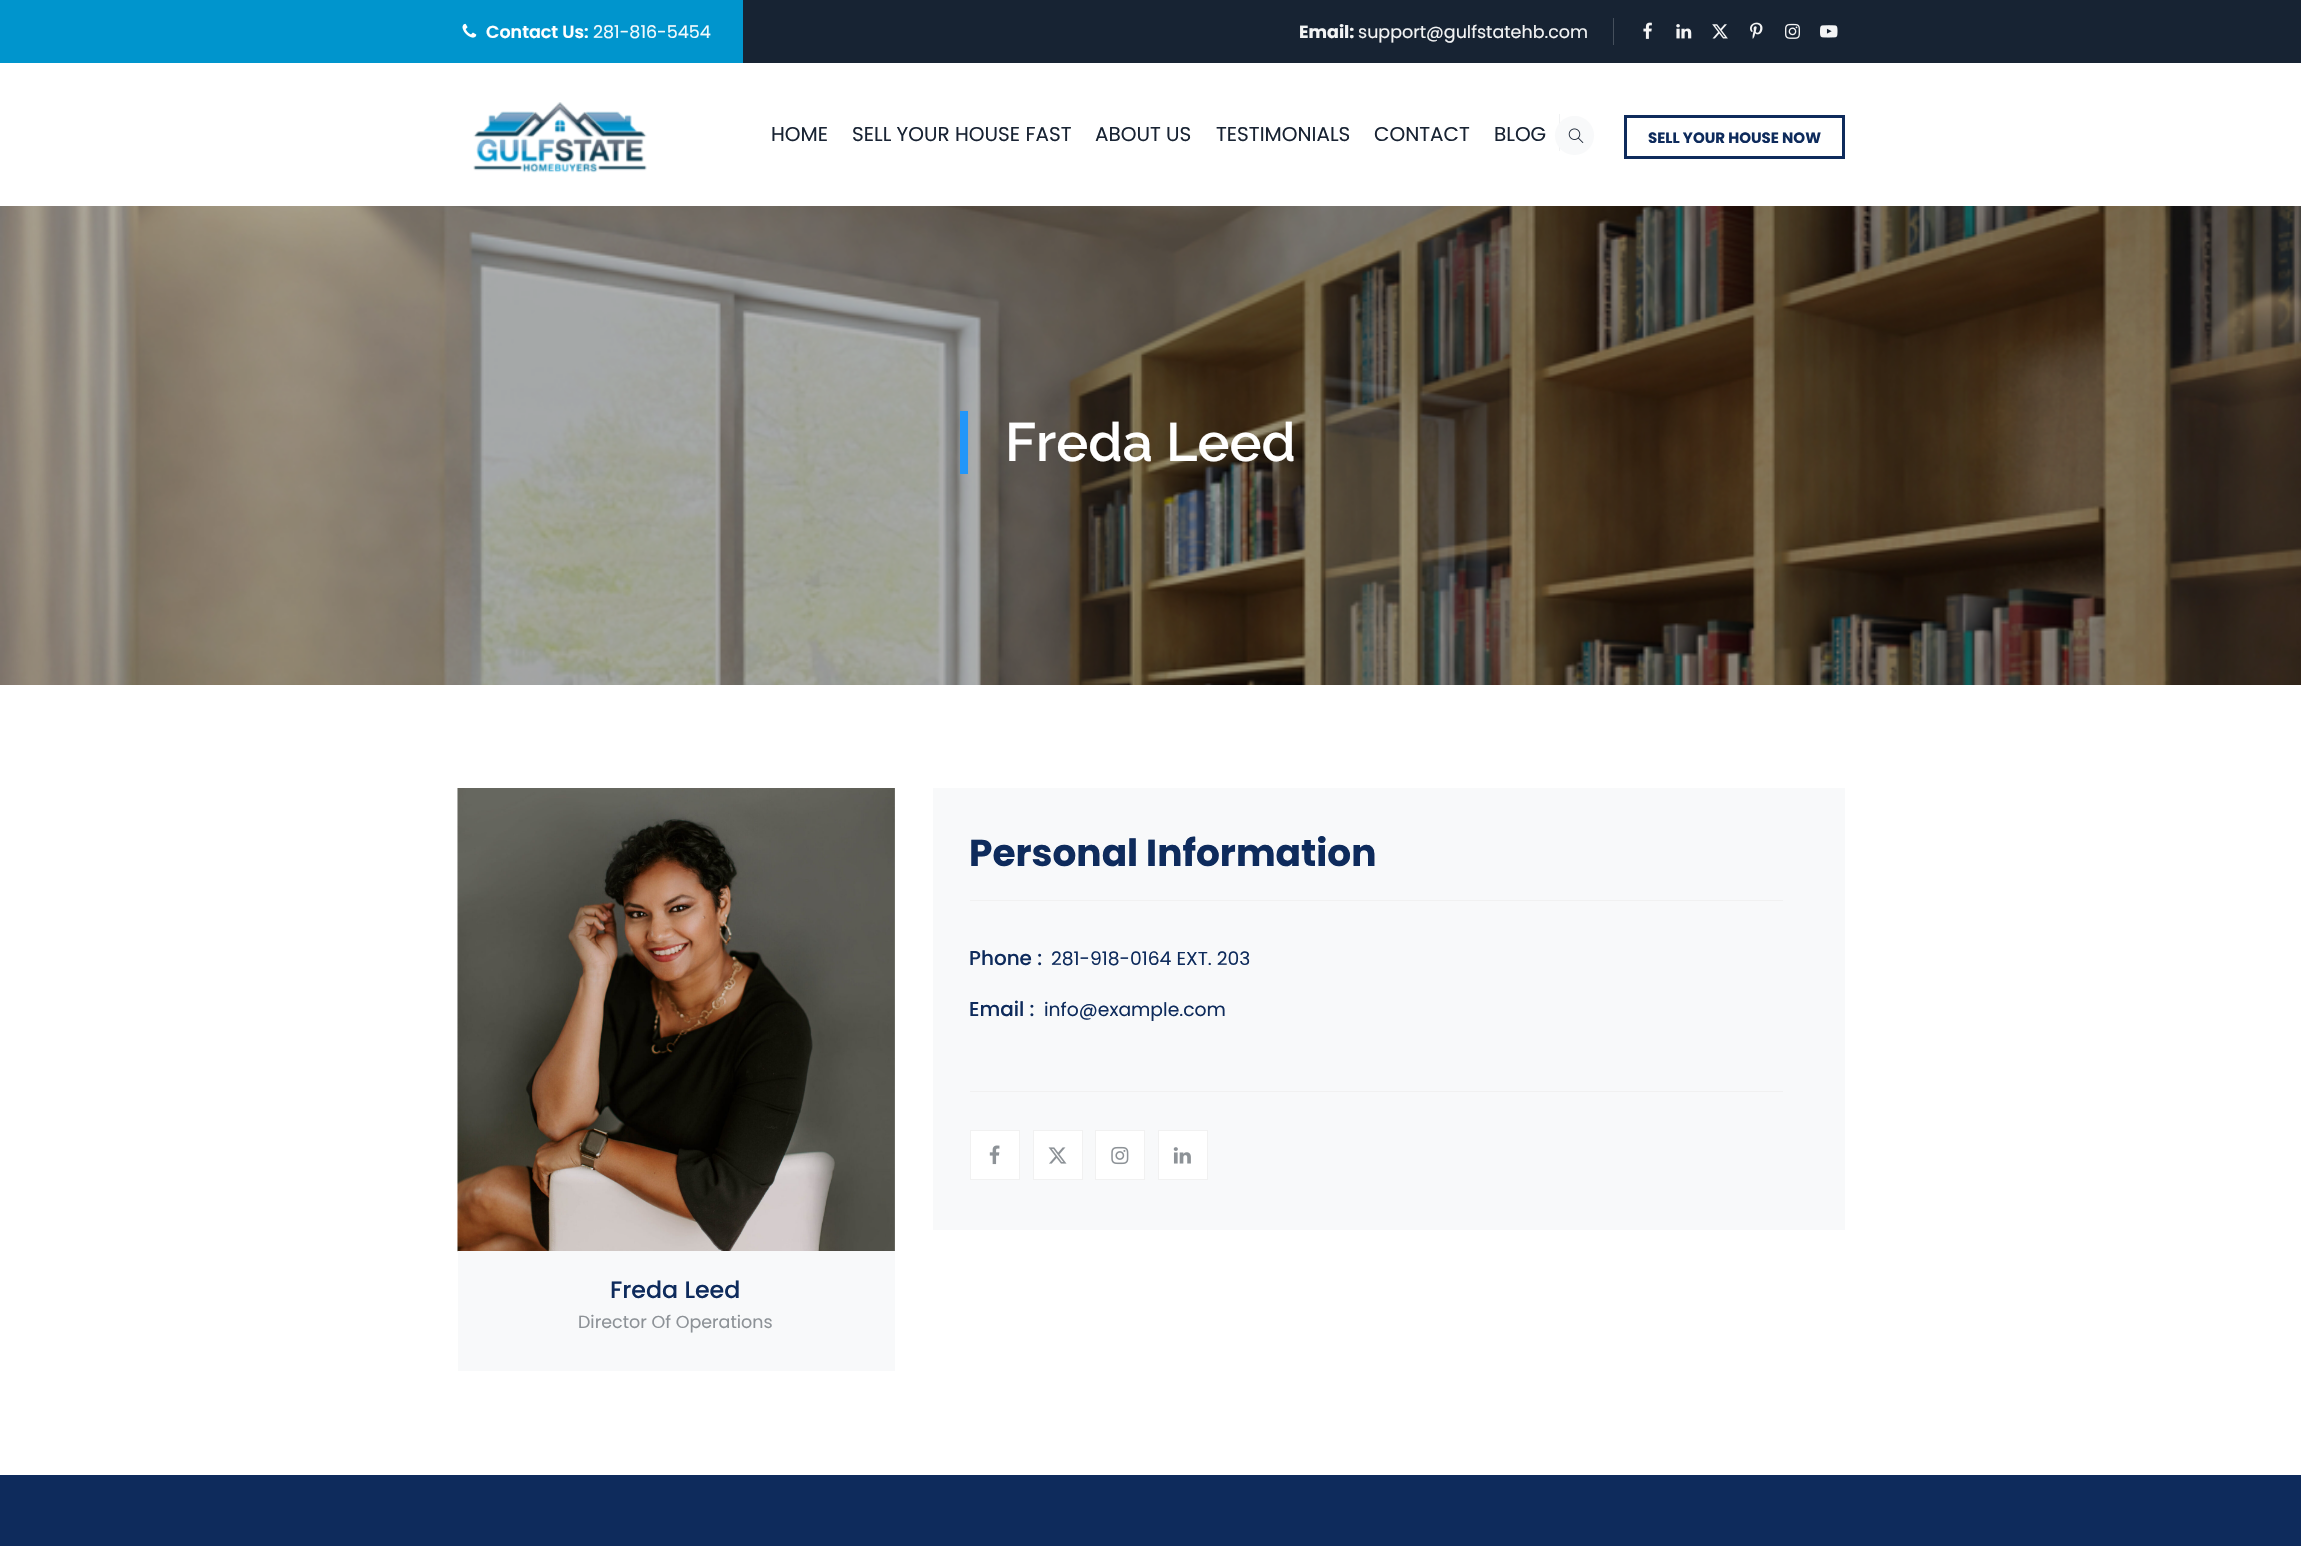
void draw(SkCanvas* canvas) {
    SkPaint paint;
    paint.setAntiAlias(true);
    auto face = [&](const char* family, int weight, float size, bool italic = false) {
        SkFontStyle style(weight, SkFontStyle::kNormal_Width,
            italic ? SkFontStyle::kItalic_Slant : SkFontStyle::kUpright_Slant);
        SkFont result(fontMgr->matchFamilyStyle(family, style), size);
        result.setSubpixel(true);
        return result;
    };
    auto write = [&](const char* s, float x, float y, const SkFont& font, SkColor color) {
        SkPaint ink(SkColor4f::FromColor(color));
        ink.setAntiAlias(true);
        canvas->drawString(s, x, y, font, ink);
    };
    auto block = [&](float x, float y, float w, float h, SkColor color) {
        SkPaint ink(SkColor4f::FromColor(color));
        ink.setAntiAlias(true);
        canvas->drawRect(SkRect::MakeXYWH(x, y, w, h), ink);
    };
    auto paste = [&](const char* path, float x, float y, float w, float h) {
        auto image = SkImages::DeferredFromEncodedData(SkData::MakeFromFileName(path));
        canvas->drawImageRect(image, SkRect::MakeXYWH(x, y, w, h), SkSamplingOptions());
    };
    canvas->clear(SK_ColorWHITE);
    block(743, 0, 1558, 63, SkColorSetRGB(23, 35, 51));
    block(0, 0, 743, 63, SkColorSetRGB(0, 149, 205));
    paste("pic1.png", 462, 23, 15, 15);
    auto kFont1 = face("Poppins", 600, 17.5f);
    write("Contact Us:", 486, 38, kFont1, SK_ColorWHITE);
    auto kFont2 = face("Poppins", 400, 17.5f);
    write("281-816-5454", 593, 38, kFont2, SkColorSetRGB(242, 250, 253));
    auto kFont3 = face("Poppins", 700, 17.5f);
    write("Email:", 1299, 38, kFont3, SkColorSetRGB(243, 244, 245));
    write("support@gulfstatehb.com", 1358, 38, kFont2, SkColorSetRGB(243, 244, 245));
    block(1613, 18, 1, 27, SkColorSetRGB(69, 79, 92));
    paste("pic2.png", 1643, 22, 9, 17);
    paste("pic3.png", 1676, 24, 16, 15);
    paste("pic4.png", 1712, 24, 16, 15);
    paste("pic5.png", 1750, 22, 13, 17);
    paste("pic6.png", 1785, 23, 15, 16);
    paste("pic7.png", 1820, 25, 18, 13);
    paste("pic8.png", 473, 102, 174, 71);
    auto kFont4 = face("Poppins", 400, 20);
    write("HOME", 771, 141, kFont4, SkColorSetRGB(24, 35, 51));
    write("SELL YOUR HOUSE FAST", 852, 141, kFont4, SkColorSetRGB(24, 35, 51));
    write("ABOUT US", 1095, 141, kFont4, SkColorSetRGB(24, 35, 51));
    write("TESTIMONIALS", 1216, 141, kFont4, SkColorSetRGB(24, 35, 51));
    write("CONTACT", 1374, 141, kFont4, SkColorSetRGB(24, 35, 51));
    write("BLOG", 1494, 141, kFont4, SkColorSetRGB(24, 35, 51));
    block(1559, 114, 1, 37, SkColorSetRGB(241, 242, 243));
    paint.setColor(SkColorSetRGB(248, 249, 250));
    canvas->drawCircle(1574.5f, 135.5f, 19.5f, paint);
    paste("pic9.png", 1568, 128, 16, 15);
    paint.setStyle(SkPaint::kStroke_Style);
    paint.setStrokeWidth(3);
    paint.setColor(SkColorSetRGB(14, 43, 92));
    canvas->drawRect(SkRect::MakeXYWH(1625.5f, 116.5f, 218, 41), paint);
    auto kFont5 = face("Poppins", 700, 15);
    write("SELL YOUR HOUSE NOW", 1648, 143, kFont5, SkColorSetRGB(14, 43, 92));
    paste("pic10.png", 0, 206, 2301, 479);
    block(960, 411, 8, 63, SkColorSetRGB(34, 150, 249));
    auto kFont6 = face("Raleway", 100, 53.75f);
    write("Freda Leed", 1005, 461, kFont6, SK_ColorWHITE);
    block(933, 788, 912, 442, SkColorSetRGB(248, 249, 250));
    block(970, 900, 813, 1, SkColorSetRGB(241, 241, 241));
    auto kFont7 = face("Poppins", 700, 37.5f);
    write("Personal Information", 969, 866, kFont7, SkColorSetRGB(14, 43, 92));
    auto kFont8 = face("Poppins", 500, 20);
    write("Phone :", 969, 965, kFont8, SkColorSetRGB(14, 43, 92));
    auto kFont9 = face("Poppins", 400, 18.75f);
    write("281-918-0164 EXT. 203", 1051, 965, kFont9, SkColorSetRGB(14, 43, 92));
    write("Email :", 969, 1016, kFont8, SkColorSetRGB(14, 43, 92));
    write("info@example.com", 1044, 1016, kFont9, SkColorSetRGB(14, 43, 92));
    block(970, 1091, 813, 1, SkColorSetRGB(241, 241, 241));
    paint.setStyle(SkPaint::kFill_Style);
    paint.setColor(SK_ColorWHITE);
    canvas->drawRect(SkRect::MakeXYWH(970.5f, 1130.5f, 49, 49), paint);
    paint.setStyle(SkPaint::kStroke_Style);
    paint.setStrokeWidth(1);
    paint.setColor(SkColorSetRGB(241, 241, 241));
    canvas->drawRect(SkRect::MakeXYWH(970.5f, 1130.5f, 49, 49), paint);
    paste("pic11.png", 989, 1145, 11, 20);
    paint.setStyle(SkPaint::kFill_Style);
    paint.setColor(SK_ColorWHITE);
    canvas->drawRect(SkRect::MakeXYWH(1033.5f, 1130.5f, 49, 49), paint);
    paint.setStyle(SkPaint::kStroke_Style);
    paint.setColor(SkColorSetRGB(241, 241, 241));
    canvas->drawRect(SkRect::MakeXYWH(1033.5f, 1130.5f, 49, 49), paint);
    paste("pic12.png", 1048, 1147, 19, 17);
    paint.setStyle(SkPaint::kFill_Style);
    paint.setColor(SK_ColorWHITE);
    canvas->drawRect(SkRect::MakeXYWH(1095.5f, 1130.5f, 49, 49), paint);
    paint.setStyle(SkPaint::kStroke_Style);
    paint.setColor(SkColorSetRGB(241, 241, 241));
    canvas->drawRect(SkRect::MakeXYWH(1095.5f, 1130.5f, 49, 49), paint);
    paste("pic13.png", 1111, 1146, 18, 19);
    paint.setStyle(SkPaint::kFill_Style);
    paint.setColor(SK_ColorWHITE);
    canvas->drawRect(SkRect::MakeXYWH(1158.5f, 1130.5f, 49, 49), paint);
    paint.setStyle(SkPaint::kStroke_Style);
    paint.setColor(SkColorSetRGB(241, 241, 241));
    canvas->drawRect(SkRect::MakeXYWH(1158.5f, 1130.5f, 49, 49), paint);
    paste("pic14.png", 1173, 1147, 18, 17);
    paste("pic15.png", 457, 788, 438, 464);
    block(458, 1251, 437, 120, SkColorSetRGB(248, 249, 250));
    auto kFont10 = face("Poppins", 500, 23.75f);
    write("Freda Leed", 610, 1298, kFont10, SkColorSetRGB(14, 43, 92));
    write("Director Of Operations", 578, 1328, kFont2, SkColorSetRGB(141, 146, 151));
    block(0, 1475, 2301, 71, SkColorSetRGB(14, 43, 92));
}
